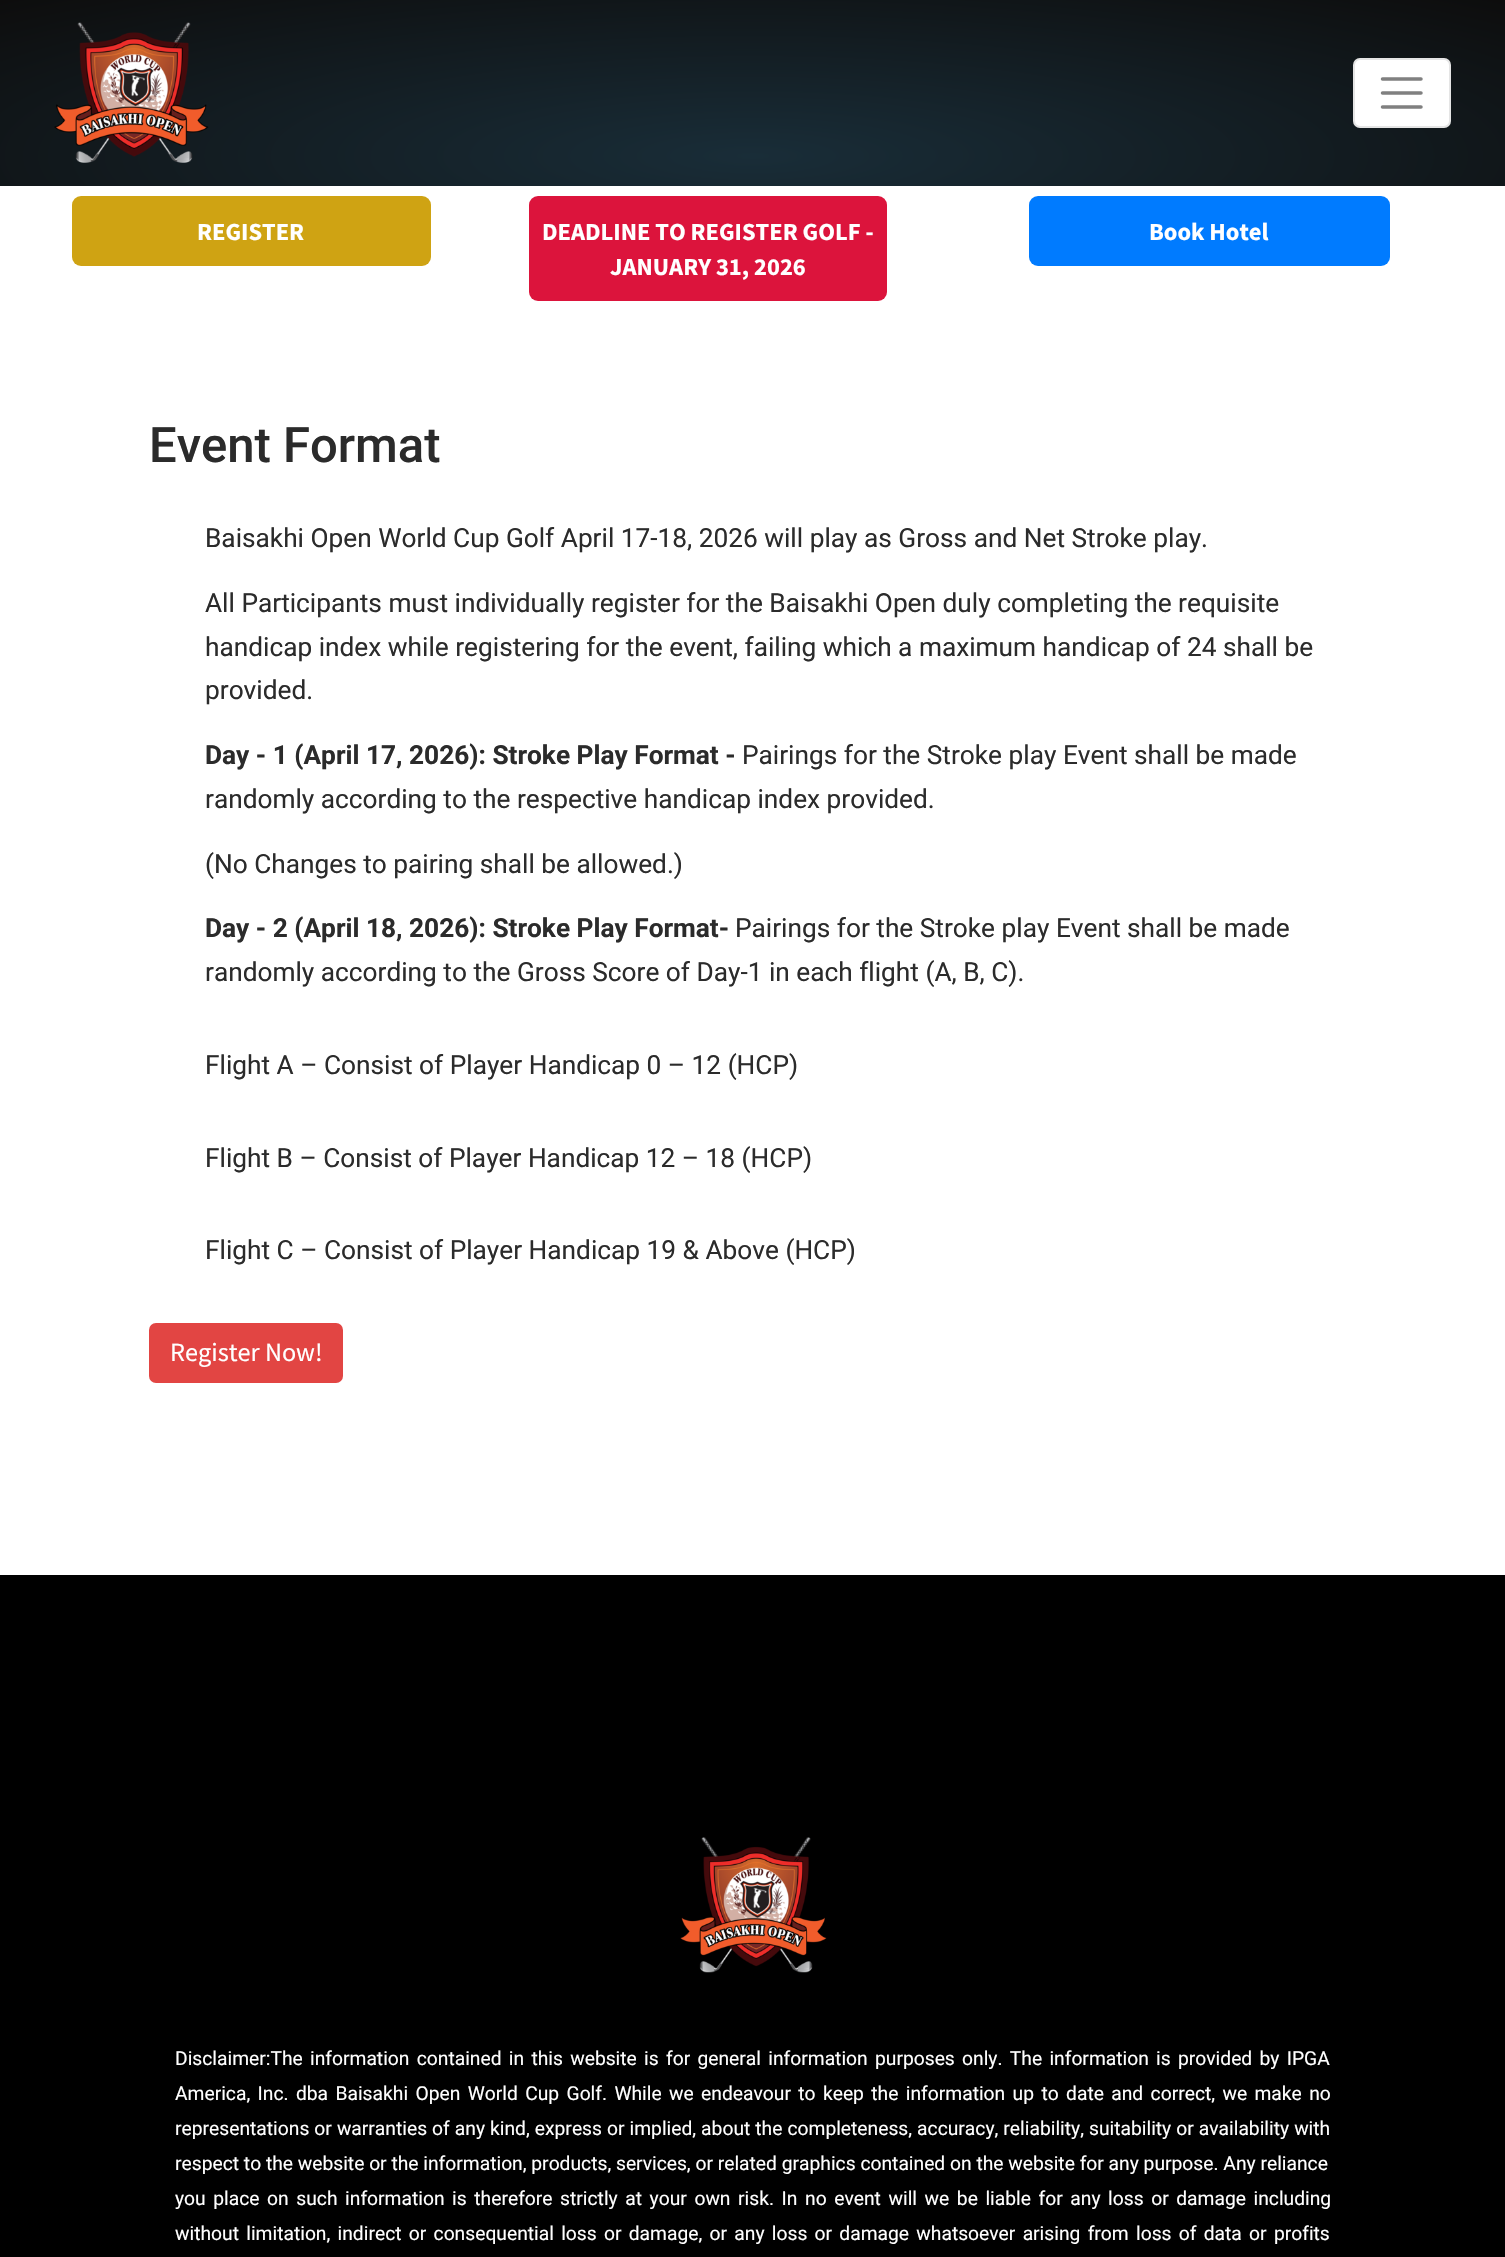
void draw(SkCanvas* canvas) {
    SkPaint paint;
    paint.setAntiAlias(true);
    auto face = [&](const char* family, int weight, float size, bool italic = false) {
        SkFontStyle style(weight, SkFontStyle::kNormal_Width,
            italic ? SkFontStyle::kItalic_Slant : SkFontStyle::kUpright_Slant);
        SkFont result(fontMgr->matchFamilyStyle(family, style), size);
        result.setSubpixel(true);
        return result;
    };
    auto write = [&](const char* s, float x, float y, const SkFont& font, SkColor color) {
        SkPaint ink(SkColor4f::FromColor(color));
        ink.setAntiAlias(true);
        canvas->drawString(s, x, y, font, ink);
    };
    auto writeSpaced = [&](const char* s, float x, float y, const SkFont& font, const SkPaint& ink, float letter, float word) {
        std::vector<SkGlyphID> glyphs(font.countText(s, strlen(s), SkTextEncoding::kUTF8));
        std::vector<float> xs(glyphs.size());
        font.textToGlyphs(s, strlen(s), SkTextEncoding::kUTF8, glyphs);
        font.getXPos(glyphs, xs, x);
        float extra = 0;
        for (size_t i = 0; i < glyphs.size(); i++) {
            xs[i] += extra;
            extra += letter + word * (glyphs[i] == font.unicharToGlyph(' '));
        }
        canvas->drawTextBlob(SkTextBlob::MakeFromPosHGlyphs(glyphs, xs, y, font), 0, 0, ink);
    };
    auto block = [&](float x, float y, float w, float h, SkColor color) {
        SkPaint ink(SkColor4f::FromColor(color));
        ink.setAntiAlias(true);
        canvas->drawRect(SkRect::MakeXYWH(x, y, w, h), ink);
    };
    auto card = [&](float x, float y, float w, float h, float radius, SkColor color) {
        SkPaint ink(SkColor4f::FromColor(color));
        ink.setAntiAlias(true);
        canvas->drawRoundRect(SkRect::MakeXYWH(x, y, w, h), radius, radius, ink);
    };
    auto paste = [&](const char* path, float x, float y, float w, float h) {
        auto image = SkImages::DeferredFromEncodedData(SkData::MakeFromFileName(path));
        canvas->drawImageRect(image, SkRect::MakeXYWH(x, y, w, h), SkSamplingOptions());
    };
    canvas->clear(SK_ColorWHITE);
    {
        const SkColor colors[] = {SkColorSetRGB(25, 45, 56), SkColorSetRGB(13, 13, 13)};
        const float stops[] = {0, 1};
        SkMatrix m = SkMatrix::Translate(753, 156).preScale(1064, 220);
        paint.setShader(SkGradientShader::MakeRadial({0, 0}, 1, colors, stops, 2, SkTileMode::kClamp, 0, &m));
        paint.setAlpha(255);
    }
    canvas->drawRect(SkRect::MakeXYWH(0, 0, 1505, 186), paint);
    paste("pic1.png", 54, 22, 155, 141);
    card(1353, 58, 98, 70, 7, SK_ColorWHITE);
    paint.setStyle(SkPaint::kStroke_Style);
    paint.setStrokeWidth(2);
    paint.setShader(nullptr);
    paint.setColor(SkColorSetARGB(26, 0, 0, 0));
    canvas->drawRoundRect(SkRect::MakeXYWH(1354, 59, 96, 68), 6, 6, paint);
    paint.setStrokeWidth(3.5f);
    paint.setStrokeCap(SkPaint::kRound_Cap);
    paint.setColor(SkColorSetRGB(128, 128, 128));
    canvas->drawPath(SkPathBuilder().moveTo(1382.5f, 79).lineTo(1421, 79).moveTo(1382.5f, 93).lineTo(1421, 93).moveTo(1382.5f, 107).lineTo(1421, 107).detach(), paint);
    card(72, 196, 359, 70, 9, SkColorSetRGB(207, 163, 19));
    auto kFont1 = face("Source Sans Pro", 700, 24.5f);
    write("REGISTER", 197, 240, kFont1, SK_ColorWHITE);
    card(529, 196, 358, 105, 9, SkColorSetRGB(220, 20, 60));
    write("DEADLINE TO REGISTER GOLF -", 542, 240, kFont1, SK_ColorWHITE);
    write("JANUARY 31, 2026", 610, 275, kFont1, SK_ColorWHITE);
    card(1029, 196, 361, 70, 9, SkColorSetRGB(0, 123, 255));
    write("Book Hotel", 1149, 240, kFont1, SK_ColorWHITE);
    auto kFont2 = face("Roboto", 500, 49);
    write("Event Format", 149, 462, kFont2, SkColorSetRGB(43, 43, 43));
    auto kFont3 = face("Roboto", 400, 26.25f);
    write("Baisakhi Open World Cup Golf April 17-18, 2026 will play as Gross and Net Stroke play.", 205, 547, kFont3, SkColorSetRGB(43, 43, 43));
    write("All Participants must individually register for the Baisakhi Open duly completing the requisite", 205, 612, kFont3, SkColorSetRGB(43, 43, 43));
    write("handicap index while registering for the event, failing which a maximum handicap of 24 shall be", 205, 656, kFont3, SkColorSetRGB(43, 43, 43));
    write("provided.", 205, 699, kFont3, SkColorSetRGB(43, 43, 43));
    auto kFont4 = face("Roboto", 700, 26.25f);
    write("Day - 1 (April 17, 2026): Stroke Play Format -", 205, 764, kFont4, SkColorSetRGB(43, 43, 43));
    write("Pairings for the Stroke play Event shall be made", 742, 764, kFont3, SkColorSetRGB(43, 43, 43));
    write("randomly according to the respective handicap index provided.", 205, 808, kFont3, SkColorSetRGB(43, 43, 43));
    write("(No Changes to pairing shall be allowed.)", 205, 873, kFont3, SkColorSetRGB(43, 43, 43));
    write("Day - 2 (April 18, 2026): Stroke Play Format-", 205, 937, kFont4, SkColorSetRGB(43, 43, 43));
    write("Pairings for the Stroke play Event shall be made", 735, 937, kFont3, SkColorSetRGB(43, 43, 43));
    write("randomly according to the Gross Score of Day-1 in each flight (A, B, C).", 205, 981, kFont3, SkColorSetRGB(43, 43, 43));
    write("Flight A – Consist of Player Handicap 0 – 12 (HCP)", 205, 1074, kFont3, SkColorSetRGB(43, 43, 43));
    write("Flight B – Consist of Player Handicap 12 – 18 (HCP)", 205, 1167, kFont3, SkColorSetRGB(43, 43, 43));
    write("Flight C – Consist of Player Handicap 19 & Above (HCP)", 205, 1259, kFont3, SkColorSetRGB(43, 43, 43));
    card(149, 1323, 194, 60, 7, SkColorSetRGB(226, 69, 67));
    auto kFont5 = face("Source Sans Pro", 400, 26.25f);
    write("Register Now!", 170, 1361, kFont5, SK_ColorWHITE);
    block(0, 1575, 1505, 682, SK_ColorBLACK);
    paste("pic2.png", 680, 1837, 147, 136);
    auto kFont6 = face("Roboto", 400, 19.25f);
    paint.setStyle(SkPaint::kFill_Style);
    paint.setColor(SK_ColorWHITE);
    writeSpaced("Disclaimer:The information contained in this website is for general information purposes only. The information is provided by IPGA", 175, 2065, kFont6, paint, 0, 2.5f);
    writeSpaced("America, Inc. dba Baisakhi Open World Cup Golf. While we endeavour to keep the information up to date and correct, we make no", 175, 2100, kFont6, paint, 0, 2.6f);
    writeSpaced("representations or warranties of any kind, express or implied, about the completeness, accuracy, reliability, suitability or availability with", 175, 2135, kFont6, paint, 0, 0.25f);
    write("respect to the website or the information, products, services, or related graphics contained on the website for any purpose. Any reliance", 175, 2170, kFont6, SK_ColorWHITE);
    writeSpaced("you place on such information is therefore strictly at your own risk. In no event will we be liable for any loss or damage including", 175, 2205, kFont6, paint, 0, 2.8f);
    writeSpaced("without limitation, indirect or consequential loss or damage, or any loss or damage whatsoever arising from loss of data or profits", 175, 2240, kFont6, paint, 0, 2.5f);
}
